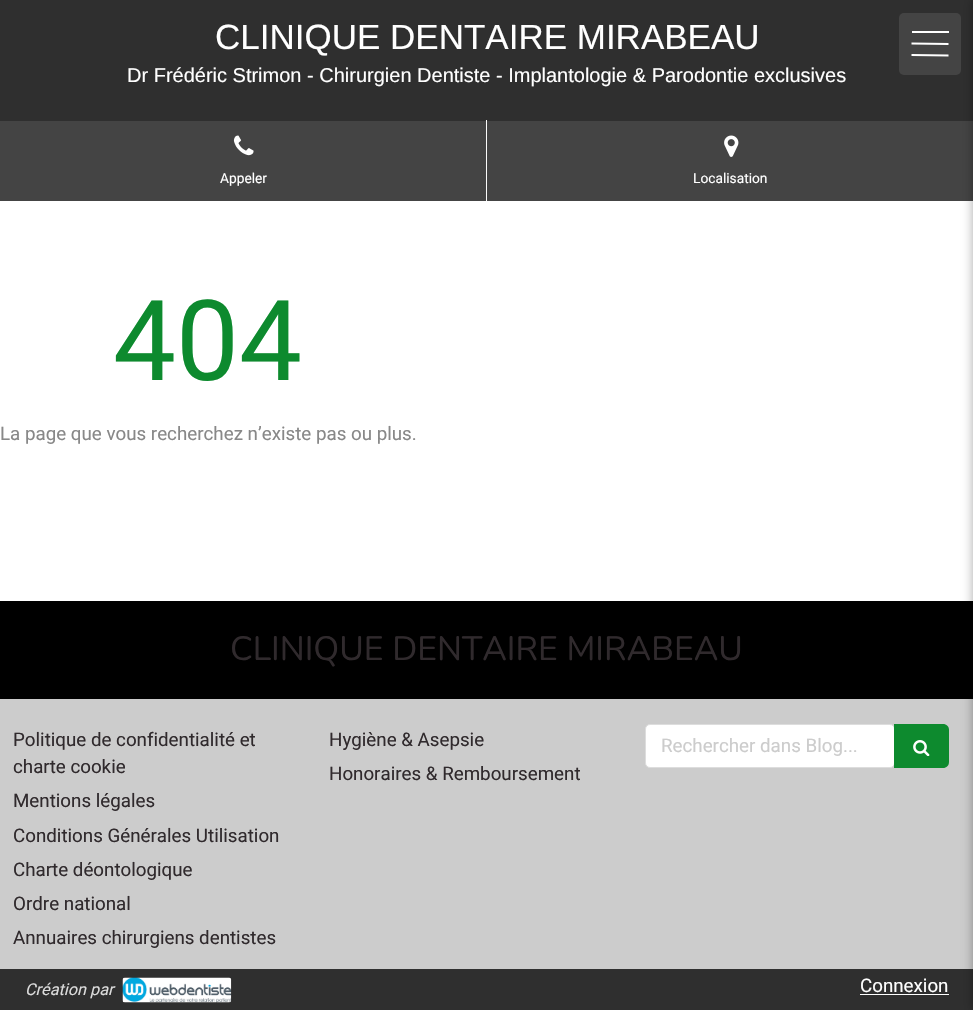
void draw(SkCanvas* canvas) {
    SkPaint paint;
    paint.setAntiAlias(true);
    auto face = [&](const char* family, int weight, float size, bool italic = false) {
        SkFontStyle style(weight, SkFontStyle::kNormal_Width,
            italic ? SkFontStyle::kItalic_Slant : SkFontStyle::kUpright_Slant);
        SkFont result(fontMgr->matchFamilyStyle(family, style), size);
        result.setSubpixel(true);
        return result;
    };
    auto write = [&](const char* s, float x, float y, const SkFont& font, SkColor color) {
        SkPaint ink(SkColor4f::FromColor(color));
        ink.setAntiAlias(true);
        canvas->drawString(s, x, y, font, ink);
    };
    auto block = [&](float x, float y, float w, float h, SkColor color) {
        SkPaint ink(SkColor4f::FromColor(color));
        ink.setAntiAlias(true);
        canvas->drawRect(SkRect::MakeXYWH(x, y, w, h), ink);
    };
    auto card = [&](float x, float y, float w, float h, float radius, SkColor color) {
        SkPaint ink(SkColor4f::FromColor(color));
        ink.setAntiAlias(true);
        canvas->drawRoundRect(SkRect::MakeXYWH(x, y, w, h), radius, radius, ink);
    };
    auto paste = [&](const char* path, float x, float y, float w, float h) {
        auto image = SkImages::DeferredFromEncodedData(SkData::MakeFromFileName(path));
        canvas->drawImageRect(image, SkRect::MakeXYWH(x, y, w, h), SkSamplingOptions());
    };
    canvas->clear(SkColorSetRGB(47, 47, 47));
    auto kFont1 = face("Liberation Sans", 400, 35);
    write("CLINIQUE DENTAIRE MIRABEAU", 215, 49, kFont1, SK_ColorWHITE);
    auto kFont2 = face("Liberation Sans", 400, 20);
    write("Dr Frédéric Strimon - Chirurgien Dentiste - Implantologie & Parodontie exclusives", 127, 82, kFont2, SK_ColorWHITE);
    card(899, 13, 62, 62, 5, SkColorSetRGB(68, 68, 68));
    block(912, 31, 37, 2, SK_ColorWHITE);
    paint.setStyle(SkPaint::kStroke_Style);
    paint.setStrokeWidth(2.2f);
    paint.setColor(SK_ColorWHITE);
    canvas->drawPath(SkPathBuilder().moveTo(911.5f, 43.5f).lineTo(948.5f, 44).detach(), paint);
    canvas->drawPath(SkPathBuilder().moveTo(911.5f, 55).lineTo(948.5f, 55.5f).detach(), paint);
    block(0, 121, 973, 80, SkColorSetRGB(68, 68, 68));
    paste("pic1.png", 233, 135, 21, 21);
    auto kFont3 = face("Roboto", 400, 13.75f);
    write("Appeler", 220, 183, kFont3, SK_ColorWHITE);
    block(486, 120, 1, 83, SkColorSetRGB(251, 251, 251));
    paste("pic2.png", 724, 135, 15, 22);
    write("Localisation", 693, 183, kFont3, SK_ColorWHITE);
    block(0, 201, 973, 400, SK_ColorWHITE);
    auto kFont4 = face("Roboto", 400, 112);
    write("404", 113, 380, kFont4, SkColorSetRGB(13, 138, 46));
    auto kFont5 = face("Roboto", 400, 18.75f);
    write("La page que vous recherchez n’existe pas ou plus.", 0, 440, kFont5, SkColorSetRGB(136, 136, 136));
    block(0, 601, 973, 98, SK_ColorBLACK);
    auto kFont6 = face("Nunito", 400, 33.75f);
    write("CLINIQUE DENTAIRE MIRABEAU", 230, 660, kFont6, SkColorSetRGB(48, 42, 45));
    block(0, 699, 973, 270, SkColorSetRGB(204, 204, 204));
    write("Politique de confidentialité et", 13, 746, kFont5, SkColorSetRGB(48, 42, 45));
    write("charte cookie", 13, 773, kFont5, SkColorSetRGB(48, 42, 45));
    write("Mentions légales", 13, 807, kFont5, SkColorSetRGB(48, 42, 45));
    write("Conditions Générales Utilisation", 13, 842, kFont5, SkColorSetRGB(48, 42, 45));
    write("Charte déontologique", 13, 876, kFont5, SkColorSetRGB(48, 42, 45));
    write("Ordre national", 13, 910, kFont5, SkColorSetRGB(48, 42, 45));
    write("Annuaires chirurgiens dentistes", 13, 944, kFont5, SkColorSetRGB(48, 42, 45));
    write("Hygiène & Asepsie", 329, 746, kFont5, SkColorSetRGB(48, 42, 45));
    write("Honoraires & Remboursement", 329, 780, kFont5, SkColorSetRGB(48, 42, 45));
    paint.setStyle(SkPaint::kFill_Style);
    canvas->drawRoundRect(SkRect::MakeXYWH(645.5f, 724.5f, 249, 43), 4.5f, 4.5f, paint);
    paint.setStyle(SkPaint::kStroke_Style);
    paint.setStrokeWidth(1);
    paint.setColor(SkColorSetRGB(221, 221, 221));
    canvas->drawRoundRect(SkRect::MakeXYWH(645.5f, 724.5f, 249, 43), 4.5f, 4.5f, paint);
    write("Rechercher dans Blog...", 661, 752, kFont5, SkColorSetRGB(204, 204, 204));
    paint.setStyle(SkPaint::kFill_Style);
    paint.setColor(SkColorSetRGB(13, 138, 46));
    canvas->drawPath(SkPathBuilder().moveTo(894, 724).lineTo(943, 724).cubicTo(946.5f, 724, 949, 726.5f, 949, 730).lineTo(949, 762).cubicTo(949, 765.5f, 946.5f, 768, 943, 768).lineTo(894, 768).close().detach(), paint);
    paste("pic3.png", 913, 740, 17, 16);
    auto kFont7 = face("Roboto", 400, 16.25f, true);
    write("Création par", 25, 995, kFont7, SkColorSetRGB(220, 220, 220));
    paste("pic4.png", 122, 977, 110, 26);
    write("Connexion", 860, 992, kFont5, SK_ColorWHITE);
    block(860, 994, 89, 1, SK_ColorWHITE);
    paint.setColor(SkColorSetARGB(102, 0, 0, 0));
    paint.setMaskFilter(SkMaskFilter::MakeBlur(kNormal_SkBlurStyle, 6));
    canvas->drawRect(SkRect::MakeXYWH(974, 0, 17, 1010), paint);
    paint.setMaskFilter(nullptr);
}
